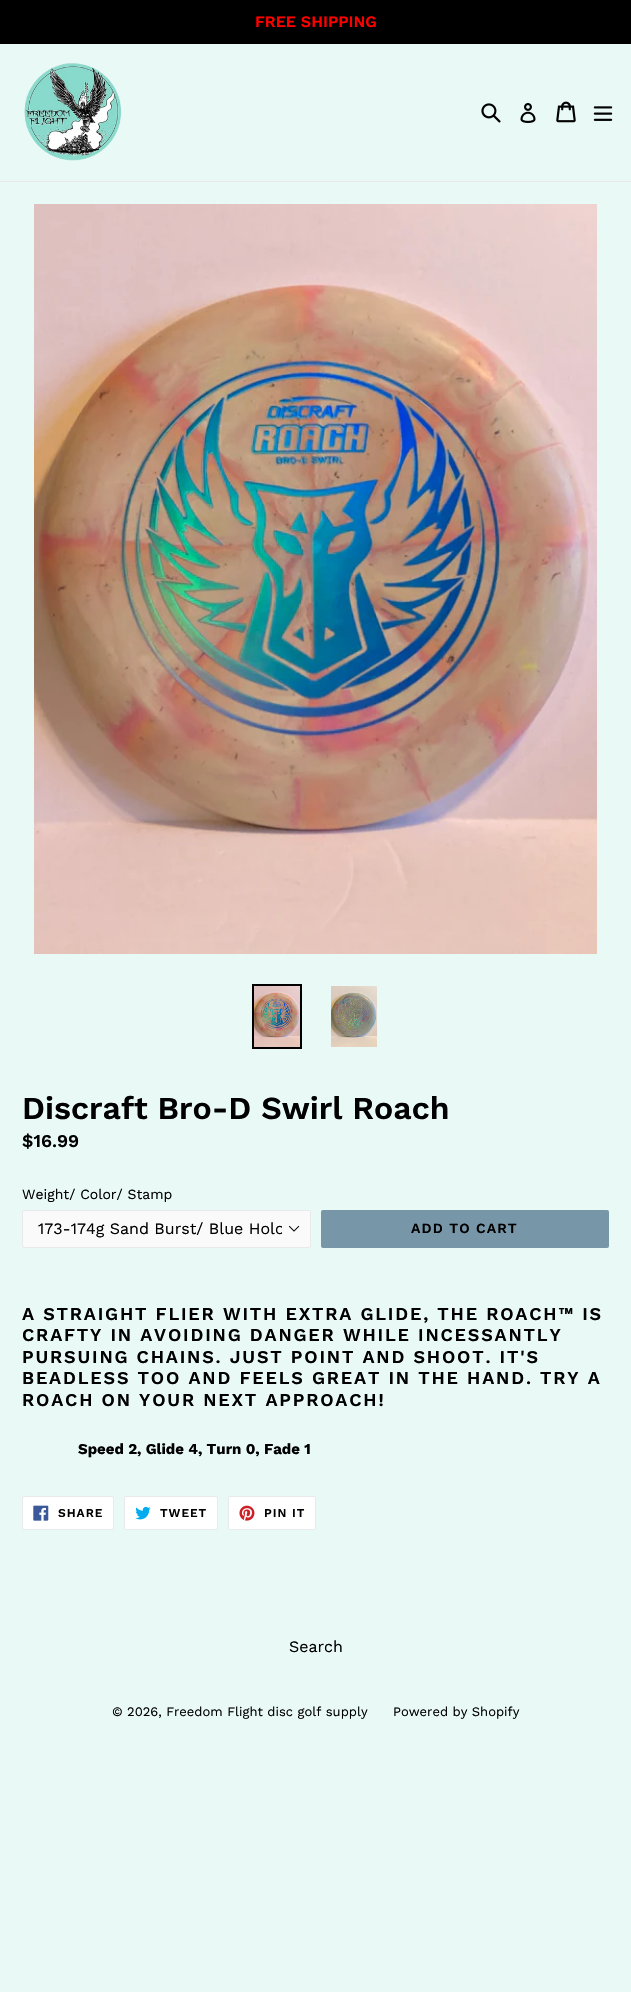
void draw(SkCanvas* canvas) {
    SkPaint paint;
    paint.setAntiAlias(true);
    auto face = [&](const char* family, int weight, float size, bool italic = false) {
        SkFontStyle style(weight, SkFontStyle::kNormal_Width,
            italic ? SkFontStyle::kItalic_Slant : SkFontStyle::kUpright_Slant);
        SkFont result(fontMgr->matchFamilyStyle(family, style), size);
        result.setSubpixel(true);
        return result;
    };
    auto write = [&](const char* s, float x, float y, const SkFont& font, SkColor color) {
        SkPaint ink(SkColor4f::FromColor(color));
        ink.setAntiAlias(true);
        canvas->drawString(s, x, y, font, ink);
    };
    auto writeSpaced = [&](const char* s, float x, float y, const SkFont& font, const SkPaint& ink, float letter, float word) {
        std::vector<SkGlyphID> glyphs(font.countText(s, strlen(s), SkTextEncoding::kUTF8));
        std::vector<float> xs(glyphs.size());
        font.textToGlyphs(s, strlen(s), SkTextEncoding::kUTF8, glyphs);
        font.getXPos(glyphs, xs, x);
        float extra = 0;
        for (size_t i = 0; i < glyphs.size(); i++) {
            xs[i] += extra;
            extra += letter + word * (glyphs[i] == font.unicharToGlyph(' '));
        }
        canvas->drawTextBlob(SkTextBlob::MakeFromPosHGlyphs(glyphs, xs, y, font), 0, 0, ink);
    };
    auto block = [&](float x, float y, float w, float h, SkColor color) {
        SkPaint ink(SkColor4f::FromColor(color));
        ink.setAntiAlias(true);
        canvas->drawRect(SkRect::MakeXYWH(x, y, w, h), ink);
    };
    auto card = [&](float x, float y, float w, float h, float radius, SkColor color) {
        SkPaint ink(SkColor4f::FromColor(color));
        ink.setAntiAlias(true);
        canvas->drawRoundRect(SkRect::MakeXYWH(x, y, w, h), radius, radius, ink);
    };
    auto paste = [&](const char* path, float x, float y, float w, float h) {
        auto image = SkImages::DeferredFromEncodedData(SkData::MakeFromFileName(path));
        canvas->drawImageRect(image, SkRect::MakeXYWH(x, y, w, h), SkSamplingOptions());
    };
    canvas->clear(SkColorSetRGB(232, 249, 246));
    block(0, 0, 631, 44, SK_ColorBLACK);
    auto kFont1 = face("Work Sans", 600, 16);
    write("FREE SHIPPING", 255, 27, kFont1, SkColorSetRGB(255, 0, 0));
    block(0, 181, 631, 1, SkColorSetRGB(232, 233, 235));
    paste("pic1.png", 24, 63, 98, 98);
    paste("pic2.png", 481, 103, 20, 20);
    paste("pic3.png", 520, 103, 16, 20);
    paste("pic4.png", 556, 101, 20, 22);
    paste("pic5.png", 593, 106, 20, 15);
    paste("pic6.png", 34, 204, 563, 750);
    paint.setStyle(SkPaint::kStroke_Style);
    paint.setStrokeWidth(2);
    paint.setColor(SK_ColorBLACK);
    canvas->drawRect(SkRect::MakeXYWH(253, 985, 48, 63), paint);
    paste("pic7.png", 254, 986, 46, 61);
    paste("pic8.png", 331, 986, 46, 61);
    auto kFont2 = face("Work Sans", 600, 32);
    write("Discraft Bro-D Swirl Roach", 22, 1119, kFont2, SK_ColorBLACK);
    auto kFont3 = face("Work Sans", 600, 18);
    write("$16.99", 22, 1147, kFont3, SK_ColorBLACK);
    auto kFont4 = face("Work Sans", 400, 14);
    write("Weight/ Color/ Stamp", 22, 1199, kFont4, SK_ColorBLACK);
    card(22, 1210, 289, 38, 2, SkColorSetRGB(250, 250, 250));
    paste("pic9.png", 288, 1225, 12, 7);
    paint.setStrokeWidth(1);
    paint.setColor(SkColorSetRGB(232, 233, 235));
    canvas->drawRoundRect(SkRect::MakeXYWH(22.5f, 1210.5f, 288, 37), 1.5f, 1.5f, paint);
    canvas->save();
    canvas->clipRect(SkRect::MakeXYWH(38, 1219, 244, 20));
    auto kFont5 = face("Work Sans", 400, 16);
    write("173-174g Sand Burst/ Blue Holo", 38, 1234, kFont5, SK_ColorBLACK);
    canvas->restore();
    card(321, 1210, 288, 38, 2, SkColorSetRGB(119, 150, 168));
    auto kFont6 = face("Work Sans", 600, 14);
    paint.setStyle(SkPaint::kFill_Style);
    paint.setColor(SK_ColorBLACK);
    writeSpaced("ADD TO CART", 411, 1233, kFont6, paint, 1.1f, 0);
    writeSpaced("A STRAIGHT FLIER WITH EXTRA GLIDE, THE ROACH™ IS", 22, 1320, kFont3, paint, 1.8f, 0);
    writeSpaced("CRAFTY IN AVOIDING DANGER WHILE INCESSANTLY", 22, 1341, kFont3, paint, 1.8f, 0);
    writeSpaced("PURSUING CHAINS. JUST POINT AND SHOOT. IT'S", 22, 1363, kFont3, paint, 1.8f, 0);
    writeSpaced("BEADLESS TOO AND FEELS GREAT IN THE HAND. TRY A", 22, 1384, kFont3, paint, 1.8f, 0);
    writeSpaced("ROACH ON YOUR NEXT APPROACH!", 22, 1406, kFont3, paint, 1.8f, 0);
    auto kFont7 = face("Work Sans", 700, 15);
    write("Speed 2, Glide 4, Turn 0, Fade 1", 78, 1454, kFont7, SK_ColorBLACK);
    paint.setColor(SK_ColorWHITE);
    canvas->drawRoundRect(SkRect::MakeXYWH(22.5f, 1496.5f, 91, 33), 1.5f, 1.5f, paint);
    paint.setStyle(SkPaint::kStroke_Style);
    paint.setColor(SkColorSetRGB(232, 233, 235));
    canvas->drawRoundRect(SkRect::MakeXYWH(22.5f, 1496.5f, 91, 33), 1.5f, 1.5f, paint);
    paste("pic10.png", 33, 1505, 16, 16);
    auto kFont8 = face("Work Sans", 600, 12);
    paint.setStyle(SkPaint::kFill_Style);
    paint.setColor(SK_ColorBLACK);
    writeSpaced("SHARE", 58, 1517, kFont8, paint, 1, 0);
    paint.setColor(SK_ColorWHITE);
    canvas->drawRoundRect(SkRect::MakeXYWH(124.5f, 1496.5f, 93, 33), 1.5f, 1.5f, paint);
    paint.setStyle(SkPaint::kStroke_Style);
    paint.setColor(SkColorSetRGB(232, 233, 235));
    canvas->drawRoundRect(SkRect::MakeXYWH(124.5f, 1496.5f, 93, 33), 1.5f, 1.5f, paint);
    paste("pic11.png", 135, 1506, 16, 14);
    paint.setStyle(SkPaint::kFill_Style);
    paint.setColor(SK_ColorBLACK);
    writeSpaced("TWEET", 160, 1517, kFont8, paint, 1, 0);
    paint.setColor(SK_ColorWHITE);
    canvas->drawRoundRect(SkRect::MakeXYWH(228.5f, 1496.5f, 87, 33), 1.5f, 1.5f, paint);
    paint.setStyle(SkPaint::kStroke_Style);
    paint.setColor(SkColorSetRGB(232, 233, 235));
    canvas->drawRoundRect(SkRect::MakeXYWH(228.5f, 1496.5f, 87, 33), 1.5f, 1.5f, paint);
    paste("pic12.png", 239, 1505, 16, 16);
    paint.setStyle(SkPaint::kFill_Style);
    paint.setColor(SK_ColorBLACK);
    writeSpaced("PIN IT", 264, 1517, kFont8, paint, 1, 0);
    write("Search", 289, 1652, kFont5, SK_ColorBLACK);
    auto kFont9 = face("Work Sans", 400, 13);
    write("© 2026, Freedom Flight disc golf supply", 112, 1716, kFont9, SK_ColorBLACK);
    write("Powered by Shopify", 393, 1716, kFont9, SK_ColorBLACK);
}
